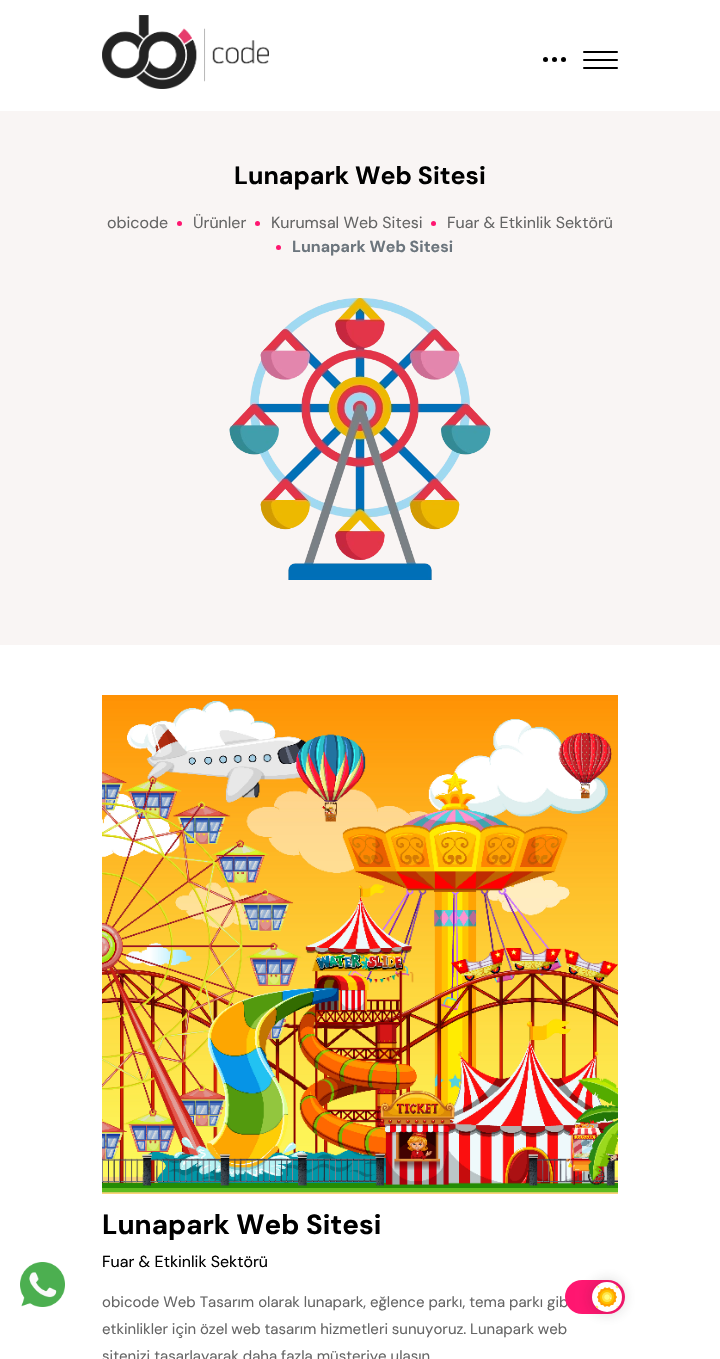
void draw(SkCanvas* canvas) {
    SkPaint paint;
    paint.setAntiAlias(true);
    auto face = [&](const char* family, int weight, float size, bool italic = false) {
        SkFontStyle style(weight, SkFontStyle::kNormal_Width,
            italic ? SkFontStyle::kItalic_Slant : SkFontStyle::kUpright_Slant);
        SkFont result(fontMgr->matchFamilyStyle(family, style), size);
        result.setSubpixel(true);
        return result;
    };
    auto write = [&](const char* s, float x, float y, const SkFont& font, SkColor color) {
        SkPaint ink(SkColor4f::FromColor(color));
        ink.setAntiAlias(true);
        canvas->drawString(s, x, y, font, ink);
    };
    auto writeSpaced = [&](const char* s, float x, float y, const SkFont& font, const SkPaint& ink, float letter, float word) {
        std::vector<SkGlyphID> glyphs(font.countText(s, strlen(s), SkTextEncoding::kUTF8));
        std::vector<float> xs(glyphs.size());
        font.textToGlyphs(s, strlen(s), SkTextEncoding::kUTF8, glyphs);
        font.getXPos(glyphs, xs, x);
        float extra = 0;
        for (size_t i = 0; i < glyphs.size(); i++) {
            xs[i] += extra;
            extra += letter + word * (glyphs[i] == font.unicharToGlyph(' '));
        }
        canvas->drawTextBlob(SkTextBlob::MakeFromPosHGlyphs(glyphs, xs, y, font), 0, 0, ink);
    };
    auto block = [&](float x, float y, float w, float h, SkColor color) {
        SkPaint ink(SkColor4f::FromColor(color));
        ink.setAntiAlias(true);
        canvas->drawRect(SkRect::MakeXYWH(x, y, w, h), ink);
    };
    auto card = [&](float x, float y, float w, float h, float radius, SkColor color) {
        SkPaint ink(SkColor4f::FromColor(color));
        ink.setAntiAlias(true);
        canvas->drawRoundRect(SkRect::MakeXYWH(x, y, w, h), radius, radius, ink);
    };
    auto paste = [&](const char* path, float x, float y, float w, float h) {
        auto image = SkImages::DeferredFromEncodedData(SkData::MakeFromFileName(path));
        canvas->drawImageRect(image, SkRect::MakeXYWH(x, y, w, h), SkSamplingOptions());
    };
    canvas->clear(SK_ColorWHITE);
    paste("pic1.png", 102, 15, 167, 74);
    card(583, 51, 35, 2, 1, SK_ColorBLACK);
    card(583, 59, 35, 2, 1, SK_ColorBLACK);
    card(583, 67, 35, 2, 1, SK_ColorBLACK);
    paint.setColor(SK_ColorBLACK);
    canvas->drawCircle(545.5f, 59.5f, 2.5f, paint);
    canvas->drawCircle(554.5f, 59.5f, 2.5f, paint);
    canvas->drawCircle(563.5f, 59.5f, 2.5f, paint);
    block(0, 111, 720, 534, SkColorSetRGB(249, 245, 244));
    auto kFont1 = face("DM Sans", 700, 25);
    write("Lunapark Web Sitesi", 234, 184, kFont1, SK_ColorBLACK);
    auto kFont2 = face("DM Sans", 400, 16);
    write("obicode", 107, 228, kFont2, SkColorSetRGB(101, 101, 101));
    paint.setColor(SkColorSetRGB(255, 22, 112));
    canvas->drawCircle(179.5f, 223.5f, 2.5f, paint);
    write("Ürünler", 193, 228, kFont2, SkColorSetRGB(101, 101, 101));
    canvas->drawCircle(257.5f, 223.5f, 2.5f, paint);
    write("Kurumsal Web Sitesi", 271, 228, kFont2, SkColorSetRGB(101, 101, 101));
    canvas->drawCircle(433.5f, 223.5f, 2.5f, paint);
    write("Fuar & Etkinlik Sektörü", 447, 228, kFont2, SkColorSetRGB(101, 101, 101));
    canvas->drawCircle(278.5f, 247.5f, 2.5f, paint);
    auto kFont3 = face("DM Sans", 700, 16);
    write("Lunapark Web Sitesi", 292, 252, kFont3, SkColorSetRGB(108, 117, 125));
    paste("pic2.png", 229, 298, 262, 282);
    paste("pic3.png", 20, 1262, 45, 45);
    paste("pic4.png", 102, 695, 516, 499);
    auto kFont4 = face("DM Sans", 700, 27.75f);
    write("Lunapark Web Sitesi", 102, 1234, kFont4, SK_ColorBLACK);
    write("Fuar & Etkinlik Sektörü", 102, 1267, kFont2, SK_ColorBLACK);
    auto kFont5 = face("DM Sans", 400, 15);
    write("obicode Web Tasarım olarak lunapark, eğlence parkı, tema parkı gib", 102, 1307, kFont5, SkColorSetRGB(101, 101, 101));
    paint.setColor(SkColorSetRGB(101, 101, 101));
    writeSpaced("etkinlikler için özel web tasarım hizmetleri sunuyoruz. Lunapark web", 102, 1334, kFont5, paint, 0, -0.25f);
    write("sitenizi tasarlayarak daha fazla müşteriye ulaşın", 102, 1361, kFont5, SkColorSetRGB(101, 101, 101));
    card(565, 1280, 60, 34, 17, SkColorSetRGB(255, 22, 112));
    paint.setColor(SkColorSetARGB(61, 32, 32, 32));
    paint.setMaskFilter(SkMaskFilter::MakeBlur(kNormal_SkBlurStyle, 7.5f));
    canvas->drawRoundRect(SkRect::MakeXYWH(592, 1282, 30, 30), 15, 15, paint);
    paint.setMaskFilter(nullptr);
    paint.setColor(SK_ColorWHITE);
    canvas->drawCircle(607, 1297, 15, paint);
    paste("pic5.png", 595, 1285, 24, 24);
}
